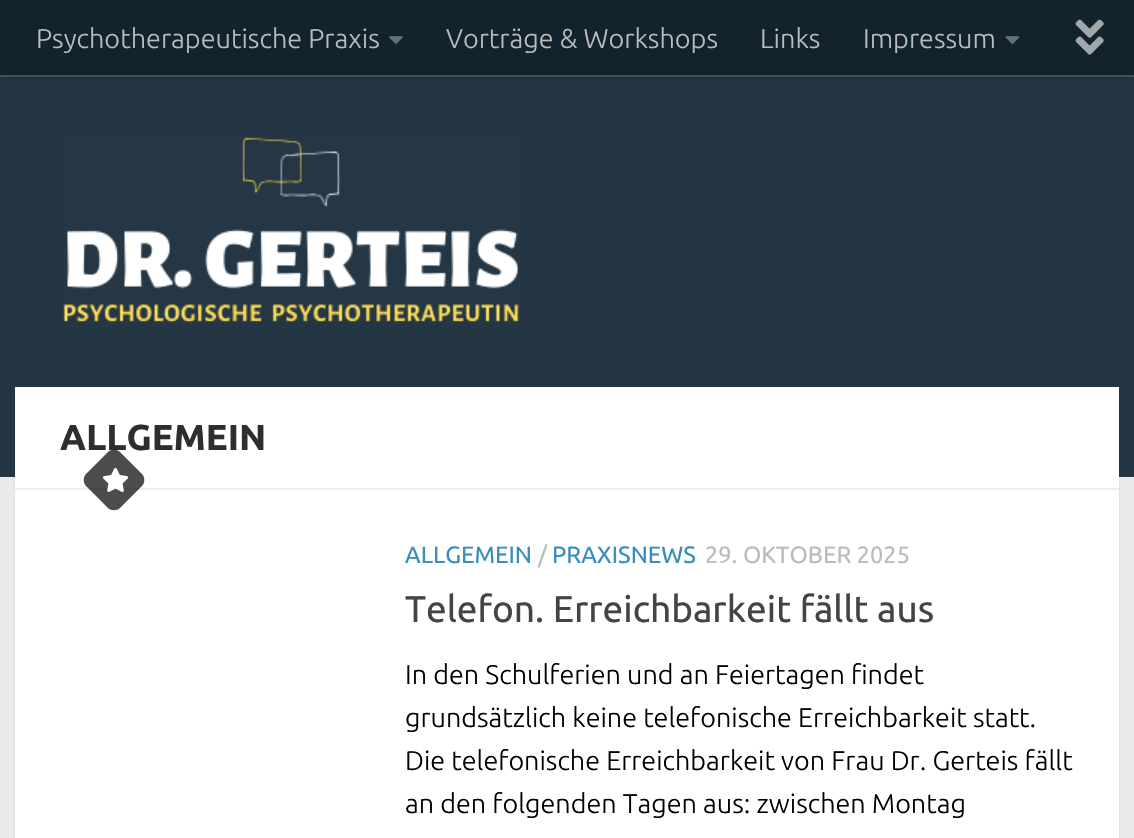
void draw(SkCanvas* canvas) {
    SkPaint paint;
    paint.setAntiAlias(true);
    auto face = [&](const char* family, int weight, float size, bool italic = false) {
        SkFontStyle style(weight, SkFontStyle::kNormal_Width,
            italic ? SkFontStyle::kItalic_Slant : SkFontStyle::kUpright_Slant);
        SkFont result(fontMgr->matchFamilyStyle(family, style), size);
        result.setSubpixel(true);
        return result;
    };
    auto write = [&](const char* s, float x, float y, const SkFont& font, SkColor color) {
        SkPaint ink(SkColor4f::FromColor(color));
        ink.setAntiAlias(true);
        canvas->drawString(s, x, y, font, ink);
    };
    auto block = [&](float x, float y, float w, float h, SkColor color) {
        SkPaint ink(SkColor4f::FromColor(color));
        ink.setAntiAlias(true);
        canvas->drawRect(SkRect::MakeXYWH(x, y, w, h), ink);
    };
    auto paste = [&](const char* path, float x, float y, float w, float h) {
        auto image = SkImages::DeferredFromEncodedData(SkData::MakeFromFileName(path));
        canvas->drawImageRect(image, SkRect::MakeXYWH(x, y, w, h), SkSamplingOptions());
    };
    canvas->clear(SkColorSetRGB(234, 234, 234));
    paint.setColor(SkColorSetARGB(26, 0, 0, 0));
    paint.setMaskFilter(SkMaskFilter::MakeBlur(kNormal_SkBlurStyle, 1));
    canvas->drawRect(SkRect::MakeXYWH(15, 389, 1104, 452), paint);
    paint.setMaskFilter(nullptr);
    block(0, 77, 1134, 400, SkColorSetRGB(36, 54, 68));
    block(0, 75, 1134, 2, SkColorSetRGB(69, 84, 96));
    paint.setColor(SkColorSetARGB(51, 0, 0, 0));
    paint.setMaskFilter(SkMaskFilter::MakeBlur(kNormal_SkBlurStyle, 4));
    canvas->drawRect(SkRect::MakeXYWH(0, 0, 1134, 75), paint);
    paint.setMaskFilter(nullptr);
    block(0, 0, 1134, 75, SkColorSetRGB(18, 35, 45));
    auto kFont1 = face("Ubuntu", 300, 27.1f);
    write("Psychotherapeutische Praxis", 36, 48, kFont1, SkColorSetRGB(187, 187, 187));
    paste("pic1.png", 389, 36, 14, 8);
    write("Vorträge & Workshops", 446, 48, kFont1, SkColorSetRGB(187, 187, 187));
    write("Links", 760, 48, kFont1, SkColorSetRGB(187, 187, 187));
    write("Impressum", 863, 48, kFont1, SkColorSetRGB(187, 187, 187));
    paste("pic2.png", 1005, 36, 15, 8);
    paste("pic3.png", 1075, 19, 29, 36);
    paste("pic4.png", 62, 137, 458, 186);
    block(15, 387, 1104, 451, SK_ColorWHITE);
    block(15, 488, 1104, 2, SkColorSetRGB(238, 238, 238));
    auto kFont2 = face("Ubuntu", 700, 36);
    write("ALLGEMEIN", 60, 450, kFont2, SkColorSetRGB(46, 46, 46));
    paint.setColor(SkColorSetARGB(179, 0, 0, 0));
    canvas->drawPath(SkPathBuilder().moveTo(120, 452).lineTo(142, 474).cubicTo(145, 477, 145, 483, 142, 486).lineTo(120, 508).cubicTo(117, 511, 111, 511, 108, 508).lineTo(86, 486).cubicTo(83, 483, 83, 477, 86, 474).lineTo(108, 452).cubicTo(111, 449, 117, 449, 120, 452).close().detach(), paint);
    paste("pic5.png", 103, 468, 25, 24);
    auto kFont3 = face("Ubuntu", 400, 23.6f);
    write("ALLGEMEIN", 405, 563, kFont3, SkColorSetRGB(59, 141, 189));
    write("/", 538, 563, kFont3, SkColorSetRGB(187, 187, 187));
    write("PRAXISNEWS", 552, 563, kFont3, SkColorSetRGB(59, 141, 189));
    write("29. OKTOBER 2025", 705, 563, kFont3, SkColorSetRGB(187, 187, 187));
    auto kFont4 = face("Ubuntu", 400, 37.1f);
    write("Telefon. Erreichbarkeit fällt aus", 405, 622, kFont4, SkColorSetRGB(68, 68, 68));
    auto kFont5 = face("Ubuntu", 300, 27);
    write("In den Schulferien und an Feiertagen findet", 405, 684, kFont5, SK_ColorBLACK);
    write("grundsätzlich keine telefonische Erreichbarkeit statt.", 405, 727, kFont5, SK_ColorBLACK);
    write("Die telefonische Erreichbarkeit von Frau Dr. Gerteis fällt", 405, 770, kFont5, SK_ColorBLACK);
    write("an den folgenden Tagen aus: zwischen Montag", 405, 813, kFont5, SK_ColorBLACK);
}
